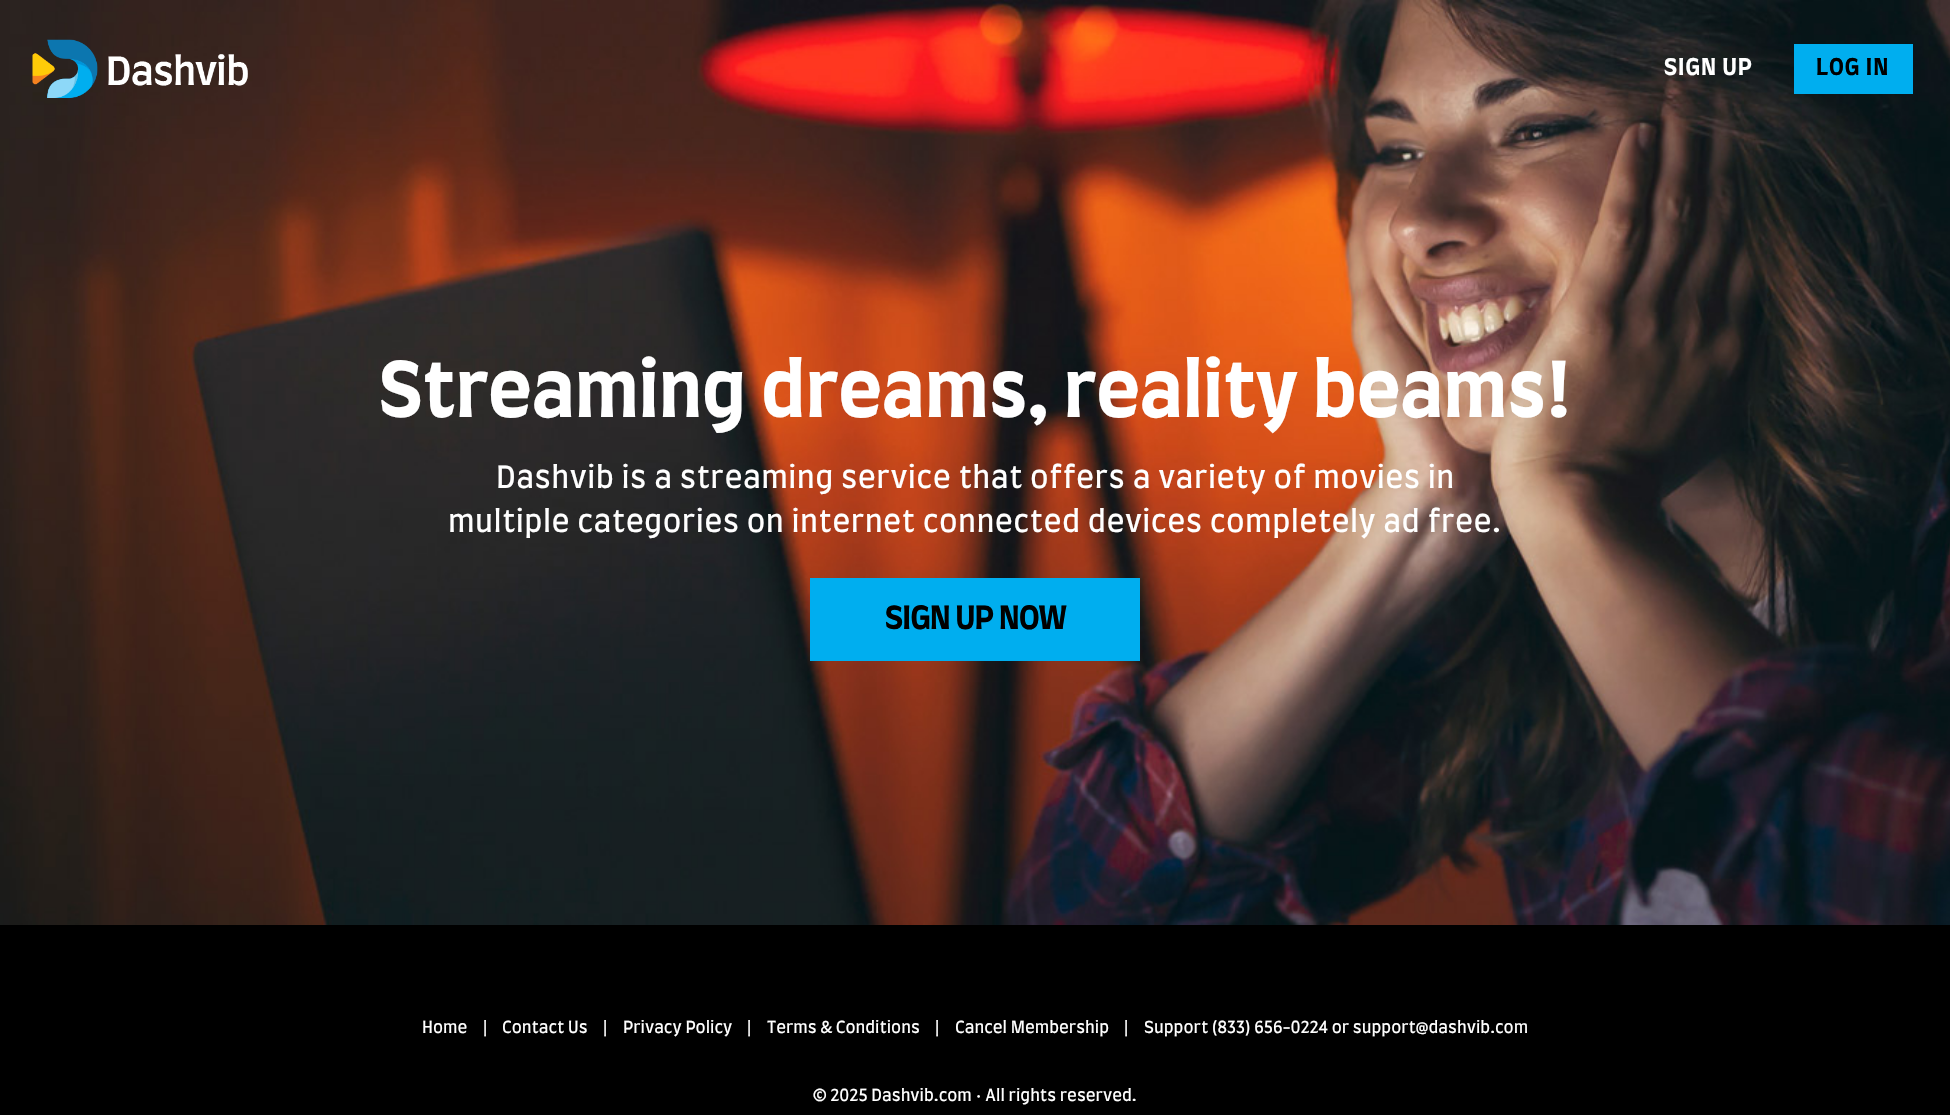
void draw(SkCanvas* canvas) {
    SkPaint paint;
    paint.setAntiAlias(true);
    auto face = [&](const char* family, int weight, float size, bool italic = false) {
        SkFontStyle style(weight, SkFontStyle::kNormal_Width,
            italic ? SkFontStyle::kItalic_Slant : SkFontStyle::kUpright_Slant);
        SkFont result(fontMgr->matchFamilyStyle(family, style), size);
        result.setSubpixel(true);
        return result;
    };
    auto write = [&](const char* s, float x, float y, const SkFont& font, SkColor color) {
        SkPaint ink(SkColor4f::FromColor(color));
        ink.setAntiAlias(true);
        canvas->drawString(s, x, y, font, ink);
    };
    auto writeSpaced = [&](const char* s, float x, float y, const SkFont& font, const SkPaint& ink, float letter, float word) {
        std::vector<SkGlyphID> glyphs(font.countText(s, strlen(s), SkTextEncoding::kUTF8));
        std::vector<float> xs(glyphs.size());
        font.textToGlyphs(s, strlen(s), SkTextEncoding::kUTF8, glyphs);
        font.getXPos(glyphs, xs, x);
        float extra = 0;
        for (size_t i = 0; i < glyphs.size(); i++) {
            xs[i] += extra;
            extra += letter + word * (glyphs[i] == font.unicharToGlyph(' '));
        }
        canvas->drawTextBlob(SkTextBlob::MakeFromPosHGlyphs(glyphs, xs, y, font), 0, 0, ink);
    };
    auto block = [&](float x, float y, float w, float h, SkColor color) {
        SkPaint ink(SkColor4f::FromColor(color));
        ink.setAntiAlias(true);
        canvas->drawRect(SkRect::MakeXYWH(x, y, w, h), ink);
    };
    auto paste = [&](const char* path, float x, float y, float w, float h) {
        auto image = SkImages::DeferredFromEncodedData(SkData::MakeFromFileName(path));
        canvas->drawImageRect(image, SkRect::MakeXYWH(x, y, w, h), SkSamplingOptions());
    };
    canvas->clear(SK_ColorBLACK);
    paste("pic2.png", 0, 0, 1950, 925);
    paste("pic1.png", 32, 39, 216, 59);
    auto kFont1 = face("Farro", 700, 22.5f);
    paint.setColor(SK_ColorWHITE);
    writeSpaced("SIGN UP", 1664, 75, kFont1, paint, 1, 0);
    block(1794, 44, 119, 50, SkColorSetRGB(0, 174, 239));
    paint.setColor(SK_ColorBLACK);
    writeSpaced("LOG IN", 1816, 75, kFont1, paint, 1, 0);
    auto kFont2 = face("Farro", 700, 75);
    write("Streaming dreams, reality beams!", 379, 417, kFont2, SK_ColorWHITE);
    auto kFont3 = face("Farro", 400, 30);
    paint.setColor(SK_ColorWHITE);
    writeSpaced("Dashvib is a streaming service that offers a variety of movies in", 496, 488, kFont3, paint, 0.42f, 0);
    writeSpaced("multiple categories on internet connected devices completely ad free.", 448, 532, kFont3, paint, 0.42f, 0);
    block(810, 578, 330, 83, SkColorSetRGB(0, 174, 239));
    auto kFont4 = face("Farro", 700, 31.25f);
    paint.setColor(SK_ColorBLACK);
    writeSpaced("SIGN UP NOW", 885, 629, kFont4, paint, -0.75f, 0);
    auto kFont5 = face("Farro", 400, 16.25f);
    write("Home", 422, 1033, kFont5, SK_ColorWHITE);
    write("|", 483, 1033, kFont5, SK_ColorWHITE);
    write("Contact Us", 502, 1033, kFont5, SK_ColorWHITE);
    write("|", 603, 1033, kFont5, SK_ColorWHITE);
    write("Privacy Policy", 623, 1033, kFont5, SK_ColorWHITE);
    write("|", 747, 1033, kFont5, SK_ColorWHITE);
    write("Terms & Conditions", 767, 1033, kFont5, SK_ColorWHITE);
    write("|", 935, 1033, kFont5, SK_ColorWHITE);
    write("Cancel Membership", 955, 1033, kFont5, SK_ColorWHITE);
    write("|", 1124, 1033, kFont5, SK_ColorWHITE);
    write("Support (833) 656-0224 or support@dashvib.com", 1144, 1033, kFont5, SK_ColorWHITE);
    write("© 2025 Dashvib.com • All rights reserved.", 813, 1101, kFont5, SK_ColorWHITE);
}
